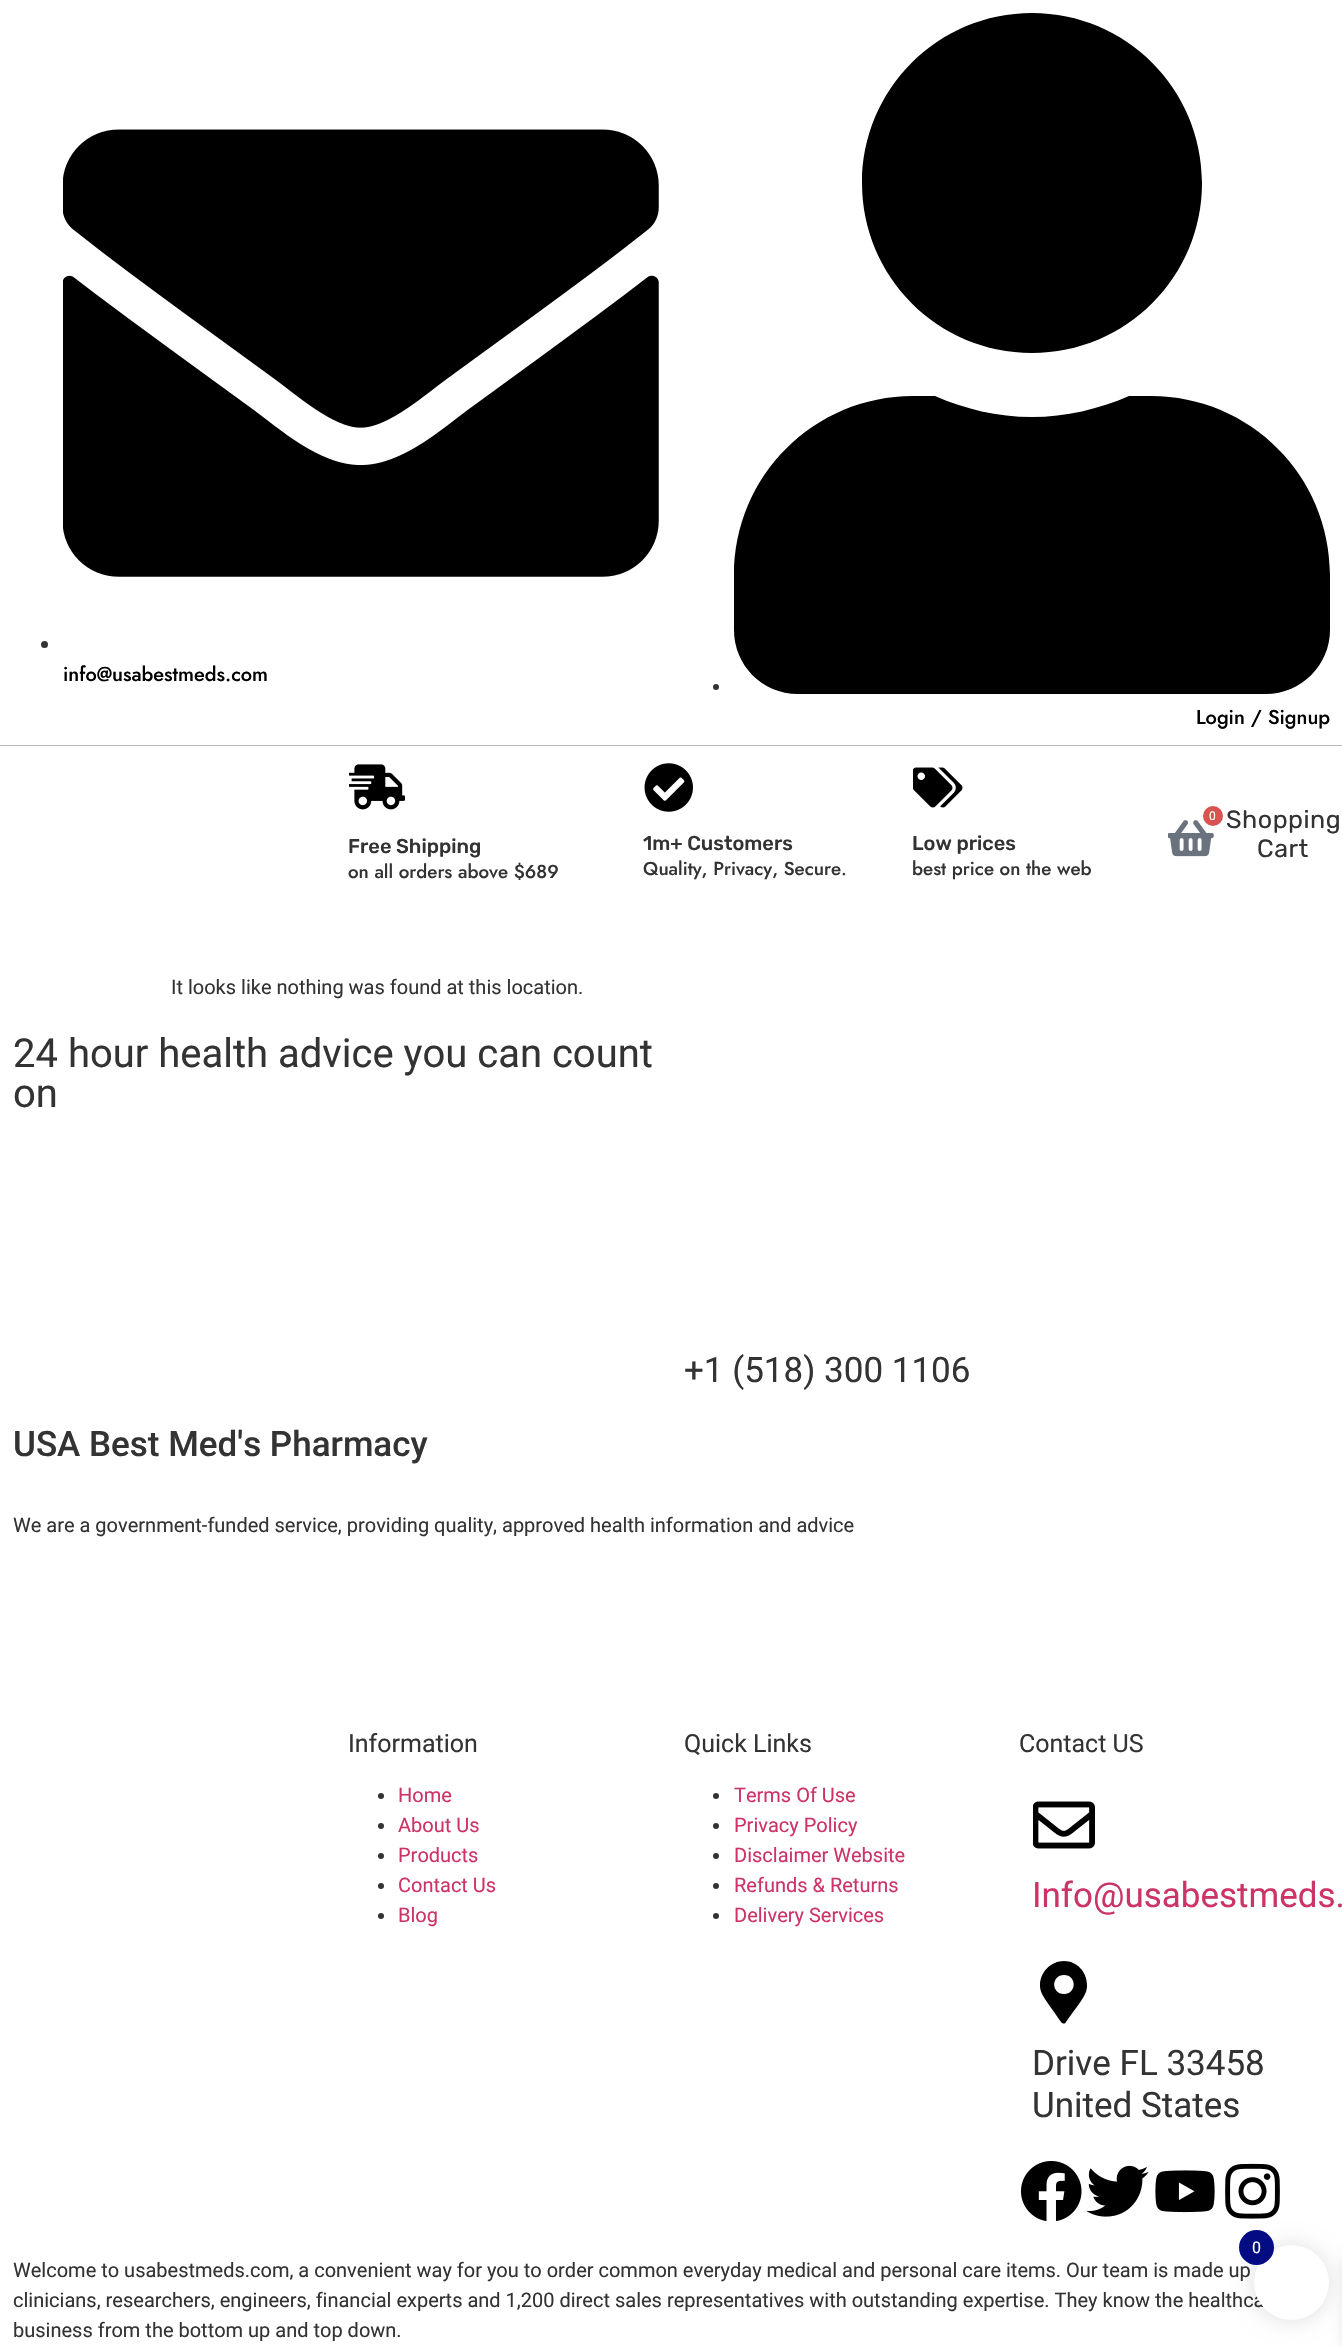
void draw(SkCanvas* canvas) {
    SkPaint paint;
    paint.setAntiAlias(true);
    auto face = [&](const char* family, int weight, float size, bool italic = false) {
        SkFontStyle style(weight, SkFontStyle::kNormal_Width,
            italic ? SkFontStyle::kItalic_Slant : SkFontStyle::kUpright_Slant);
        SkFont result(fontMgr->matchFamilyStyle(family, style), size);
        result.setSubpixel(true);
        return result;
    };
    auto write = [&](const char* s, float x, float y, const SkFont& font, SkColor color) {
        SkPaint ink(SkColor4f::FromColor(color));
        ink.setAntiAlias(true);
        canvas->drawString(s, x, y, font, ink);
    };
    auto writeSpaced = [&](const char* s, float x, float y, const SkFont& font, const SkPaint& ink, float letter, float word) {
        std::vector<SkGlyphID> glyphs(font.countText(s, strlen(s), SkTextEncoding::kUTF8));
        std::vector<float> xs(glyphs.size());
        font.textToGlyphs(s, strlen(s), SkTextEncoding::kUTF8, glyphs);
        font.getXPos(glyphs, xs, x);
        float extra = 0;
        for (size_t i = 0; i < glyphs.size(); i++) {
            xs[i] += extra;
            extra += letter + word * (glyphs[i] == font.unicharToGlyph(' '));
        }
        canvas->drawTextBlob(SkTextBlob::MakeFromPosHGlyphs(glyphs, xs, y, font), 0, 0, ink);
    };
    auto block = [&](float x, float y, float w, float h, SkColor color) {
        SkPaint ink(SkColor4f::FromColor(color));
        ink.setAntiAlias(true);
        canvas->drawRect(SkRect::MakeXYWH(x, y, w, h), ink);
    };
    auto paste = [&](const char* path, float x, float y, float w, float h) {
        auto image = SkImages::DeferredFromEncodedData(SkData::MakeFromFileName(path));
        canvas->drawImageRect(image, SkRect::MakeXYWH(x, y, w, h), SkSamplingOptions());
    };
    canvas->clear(SK_ColorWHITE);
    block(0, 745, 1342, 1, SkColorSetRGB(185, 185, 185));
    paste("pic1.png", 63, 129, 596, 448);
    paint.setColor(SkColorSetRGB(51, 51, 51));
    canvas->drawCircle(44.5f, 644.5f, 3.5f, paint);
    auto kFont1 = face("Jost", 500, 20);
    write("info@usabestmeds.com", 63, 681, kFont1, SK_ColorBLACK);
    canvas->drawCircle(716, 687, 3, paint);
    write("Login / Signup", 1196, 724, kFont1, SK_ColorBLACK);
    paint.setColor(SK_ColorBLACK);
    canvas->drawPath(SkPathBuilder().moveTo(1032, 353).cubicTo(1126, 353, 1202, 277, 1202, 183).cubicTo(1202, 89, 1126, 13, 1032, 13).cubicTo(938, 13, 862, 89, 862, 183).cubicTo(862, 277, 938, 353, 1032, 353).close().moveTo(1151, 396).lineTo(1129, 396).cubicTo(1099, 409, 1066, 417, 1032, 417).cubicTo(997, 417, 965, 409, 935, 396).lineTo(913, 396).cubicTo(814, 396, 734, 476, 734, 575).lineTo(734, 630).cubicTo(734, 665, 762, 694, 798, 694).lineTo(1266, 694).cubicTo(1301, 694, 1330, 665, 1330, 630).lineTo(1330, 575).cubicTo(1330, 476, 1250, 396, 1151, 396).close().detach(), paint);
    paste("pic2.png", 349, 764, 56, 46);
    auto kFont2 = face("Rubik", 500, 20);
    write("Free Shipping", 348, 853, kFont2, SkColorSetRGB(51, 51, 51));
    auto kFont3 = face("Jost", 500, 18.75f);
    write("on all orders above $689", 348, 878, kFont3, SkColorSetRGB(51, 51, 51));
    paste("pic3.png", 644, 763, 49, 49);
    write("1m+ Customers", 643, 850, kFont2, SkColorSetRGB(51, 51, 51));
    write("Quality, Privacy, Secure.", 643, 875, kFont3, SkColorSetRGB(51, 51, 51));
    paste("pic4.png", 913, 767, 50, 41);
    write("Low prices", 912, 850, kFont2, SkColorSetRGB(51, 51, 51));
    write("best price on the web", 912, 875, kFont3, SkColorSetRGB(51, 51, 51));
    paste("pic5.png", 1168, 820, 46, 37);
    paint.setColor(SkColorSetRGB(217, 83, 79));
    canvas->drawCircle(1213, 816, 10, paint);
    auto kFont4 = face("Roboto", 400, 12);
    write("0", 1209, 820, kFont4, SK_ColorWHITE);
    auto kFont5 = face("Rubik", 400, 25);
    paint.setColor(SkColorSetRGB(51, 51, 51));
    writeSpaced("Shopping", 1226, 828, kFont5, paint, 0.5f, 0);
    writeSpaced("Cart", 1257, 857, kFont5, paint, 0.5f, 0);
    auto kFont6 = face("Roboto", 400, 20);
    write("It looks like nothing was found at this location.", 171, 994, kFont6, SkColorSetRGB(51, 51, 51));
    auto kFont7 = face("Roboto", 400, 40);
    write("24 hour health advice you can count", 13, 1067, kFont7, SkColorSetRGB(51, 51, 51));
    write("on", 13, 1107, kFont7, SkColorSetRGB(51, 51, 51));
    auto kFont8 = face("Roboto", 400, 35);
    write("+1 (518) 300 1106", 684, 1382, kFont8, SkColorSetRGB(51, 51, 51));
    auto kFont9 = face("Roboto", 500, 35);
    write("USA Best Med's Pharmacy", 13, 1456, kFont9, SkColorSetRGB(51, 51, 51));
    write("We are a government-funded service, providing quality, approved health information and advice", 13, 1532, kFont6, SkColorSetRGB(51, 51, 51));
    auto kFont10 = face("Roboto", 400, 25);
    write("Information", 348, 1752, kFont10, SkColorSetRGB(51, 51, 51));
    canvas->drawCircle(381, 1796, 3, paint);
    write("Home", 398, 1802, kFont6, SkColorSetRGB(204, 51, 102));
    canvas->drawCircle(381, 1826, 3, paint);
    write("About Us", 398, 1832, kFont6, SkColorSetRGB(204, 51, 102));
    canvas->drawCircle(381, 1856, 3, paint);
    write("Products", 398, 1862, kFont6, SkColorSetRGB(204, 51, 102));
    canvas->drawCircle(381, 1886, 3, paint);
    write("Contact Us", 398, 1892, kFont6, SkColorSetRGB(204, 51, 102));
    canvas->drawCircle(381, 1916, 3, paint);
    write("Blog", 398, 1922, kFont6, SkColorSetRGB(204, 51, 102));
    write("Quick Links", 684, 1752, kFont10, SkColorSetRGB(51, 51, 51));
    canvas->drawCircle(716, 1796, 3, paint);
    write("Terms Of Use", 734, 1802, kFont6, SkColorSetRGB(204, 51, 102));
    canvas->drawCircle(716, 1826, 3, paint);
    write("Privacy Policy", 734, 1832, kFont6, SkColorSetRGB(204, 51, 102));
    canvas->drawCircle(716, 1856, 3, paint);
    write("Disclaimer Website", 734, 1862, kFont6, SkColorSetRGB(204, 51, 102));
    canvas->drawCircle(716, 1886, 3, paint);
    write("Refunds & Returns", 734, 1892, kFont6, SkColorSetRGB(204, 51, 102));
    canvas->drawCircle(716, 1916, 3, paint);
    write("Delivery Services", 734, 1922, kFont6, SkColorSetRGB(204, 51, 102));
    write("Contact US", 1019, 1752, kFont10, SkColorSetRGB(51, 51, 51));
    paste("pic6.png", 1033, 1801, 62, 48);
    write("Info@usabestmeds.", 1032, 1907, kFont8, SkColorSetRGB(204, 51, 102));
    paint.setColor(SK_ColorBLACK);
    canvas->drawPath(SkPathBuilder().moveTo(1061, 2022).cubicTo(1044, 1997, 1040, 1994, 1040, 1985).cubicTo(1040, 1972, 1051, 1961, 1064, 1961).cubicTo(1077, 1961, 1087, 1972, 1087, 1985).cubicTo(1087, 1994, 1084, 1997, 1066, 2022).cubicTo(1065, 2024, 1063, 2024, 1061, 2022).close().moveTo(1064, 1994).cubicTo(1077, 1994, 1077, 1975, 1064, 1975).cubicTo(1051, 1975, 1051, 1994, 1064, 1994).close().detach(), paint);
    write("Drive FL 33458", 1032, 2075, kFont8, SkColorSetRGB(51, 51, 51));
    write("United States", 1032, 2117, kFont8, SkColorSetRGB(51, 51, 51));
    paste("pic7.png", 1021, 2161, 61, 61);
    paste("pic8.png", 1086, 2165, 63, 52);
    paste("pic9.png", 1155, 2170, 60, 43);
    paste("pic10.png", 1225, 2163, 55, 56);
    write("Welcome to usabestmeds.com, a convenient way for you to order common everyday medical and personal care items. Our team is made up", 13, 2277, kFont6, SkColorSetRGB(51, 51, 51));
    write("clinicians, researchers, engineers, financial experts and 1,200 direct sales representatives with outstanding expertise. They know the healthca", 13, 2307, kFont6, SkColorSetRGB(51, 51, 51));
    write("business from the bottom up and top down.", 13, 2337, kFont6, SkColorSetRGB(51, 51, 51));
    paint.setColor(SkColorSetARGB(26, 0, 0, 0));
    paint.setMaskFilter(SkMaskFilter::MakeBlur(kNormal_SkBlurStyle, 9.5f));
    canvas->drawRoundRect(SkRect::MakeXYWH(1251, 2243, 80, 80), 40, 40, paint);
    paint.setMaskFilter(nullptr);
    paint.setMaskFilter(SkMaskFilter::MakeBlur(kNormal_SkBlurStyle, 6));
    canvas->drawRect(SkRect::MakeXYWH(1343, 2258, 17, 88), paint);
    paint.setMaskFilter(nullptr);
    paint.setColor(SK_ColorWHITE);
    canvas->drawCircle(1291.5f, 2282.5f, 37.5f, paint);
    paint.setColor(SkColorSetRGB(3, 12, 130));
    canvas->drawCircle(1256.5f, 2247.5f, 17.5f, paint);
    auto kFont11 = face("Roboto", 400, 16);
    write("0", 1252, 2253, kFont11, SK_ColorWHITE);
}
